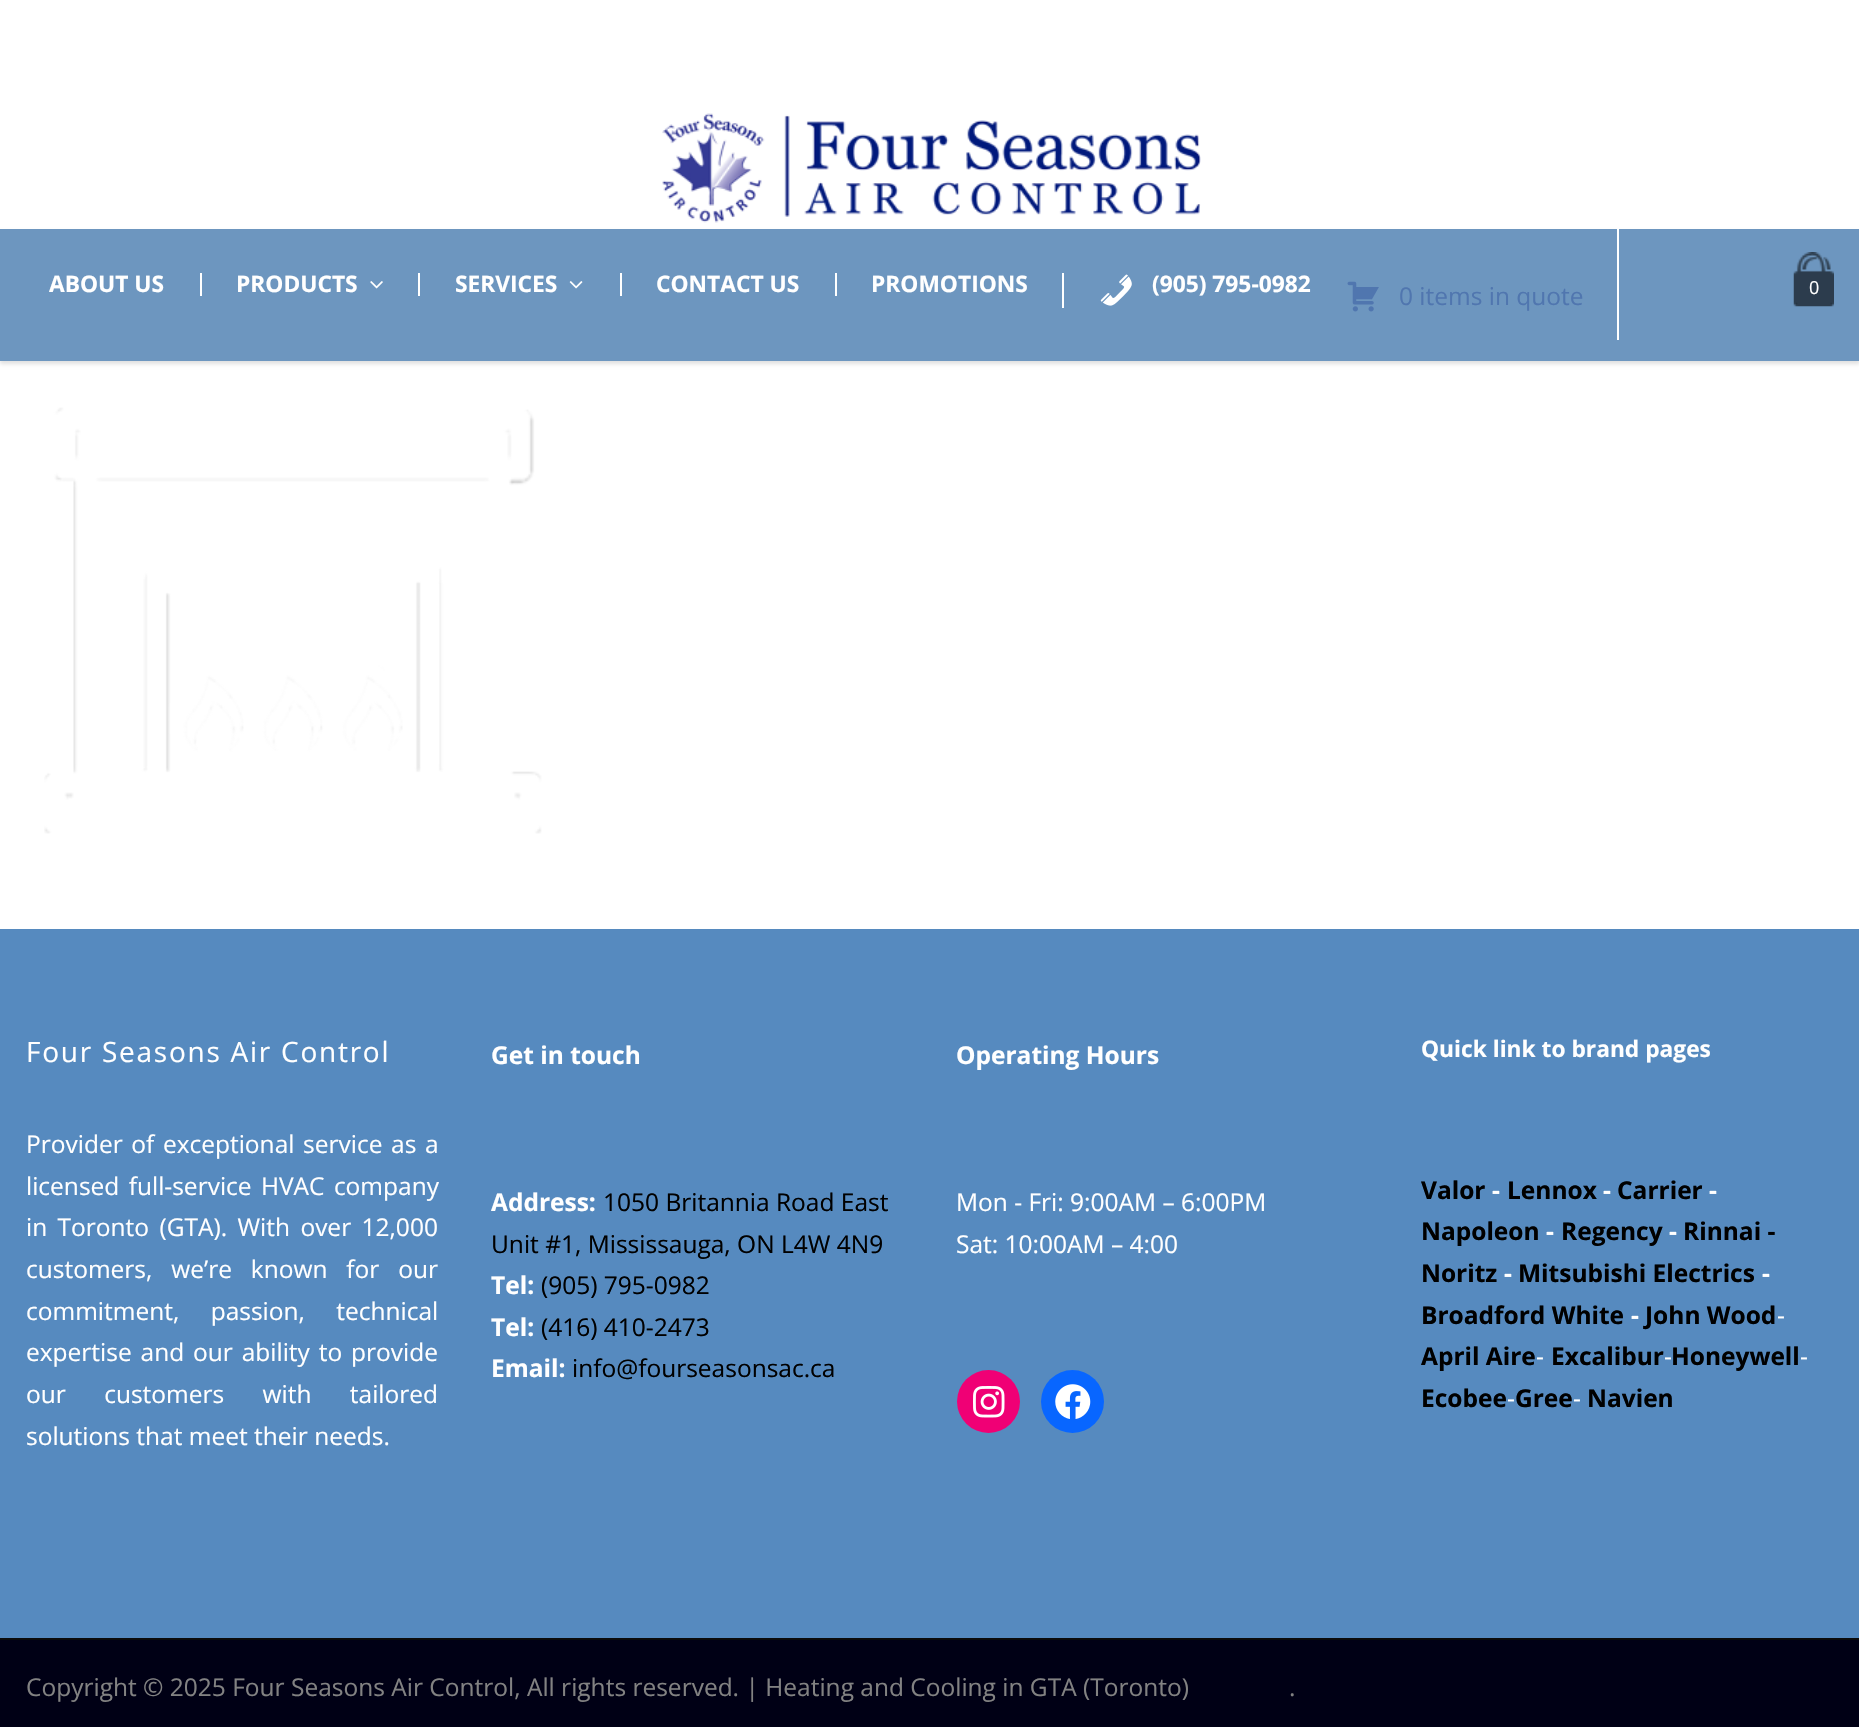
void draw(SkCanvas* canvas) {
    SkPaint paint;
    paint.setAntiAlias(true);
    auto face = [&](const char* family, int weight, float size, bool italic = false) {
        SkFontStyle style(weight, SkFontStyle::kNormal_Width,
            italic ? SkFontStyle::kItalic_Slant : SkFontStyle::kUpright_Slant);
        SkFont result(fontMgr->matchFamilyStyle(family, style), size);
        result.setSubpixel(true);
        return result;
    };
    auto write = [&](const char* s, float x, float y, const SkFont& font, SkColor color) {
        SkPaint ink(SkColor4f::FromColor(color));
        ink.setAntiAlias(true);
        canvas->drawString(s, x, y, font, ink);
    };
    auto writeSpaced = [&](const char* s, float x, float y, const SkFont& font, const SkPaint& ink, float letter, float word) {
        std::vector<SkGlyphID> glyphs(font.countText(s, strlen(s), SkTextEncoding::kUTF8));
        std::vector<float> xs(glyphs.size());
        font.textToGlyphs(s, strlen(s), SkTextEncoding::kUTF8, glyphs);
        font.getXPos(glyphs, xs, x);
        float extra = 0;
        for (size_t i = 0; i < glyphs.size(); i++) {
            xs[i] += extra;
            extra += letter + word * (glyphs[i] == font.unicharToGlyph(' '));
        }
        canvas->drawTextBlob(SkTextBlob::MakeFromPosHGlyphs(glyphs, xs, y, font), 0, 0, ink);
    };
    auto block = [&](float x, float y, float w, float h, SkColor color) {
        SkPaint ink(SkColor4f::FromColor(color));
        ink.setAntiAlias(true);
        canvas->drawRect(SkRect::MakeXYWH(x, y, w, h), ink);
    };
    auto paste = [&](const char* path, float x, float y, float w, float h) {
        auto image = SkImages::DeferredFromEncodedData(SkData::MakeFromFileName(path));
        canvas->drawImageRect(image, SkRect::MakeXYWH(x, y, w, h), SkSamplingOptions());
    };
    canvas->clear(SK_ColorWHITE);
    paste("pic1.png", 662, 113, 539, 110);
    paint.setColor(SkColorSetARGB(31, 0, 0, 0));
    paint.setMaskFilter(SkMaskFilter::MakeBlur(kNormal_SkBlurStyle, 2));
    canvas->drawRect(SkRect::MakeXYWH(0, 233, 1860, 131), paint);
    paint.setMaskFilter(nullptr);
    block(0, 229, 1859, 132, SkColorSetRGB(109, 150, 191));
    auto kFont1 = face("Open Sans", 700, 22.75f);
    write("ABOUT US", 49, 292, kFont1, SK_ColorWHITE);
    block(200, 273, 2, 23, SK_ColorWHITE);
    write("PRODUCTS", 236, 292, kFont1, SK_ColorWHITE);
    paste("pic2.png", 370, 281, 13, 8);
    block(418, 273, 2, 23, SK_ColorWHITE);
    write("SERVICES", 455, 292, kFont1, SK_ColorWHITE);
    paste("pic3.png", 569, 281, 14, 8);
    block(620, 273, 2, 23, SK_ColorWHITE);
    write("CONTACT US", 656, 292, kFont1, SK_ColorWHITE);
    block(835, 273, 2, 23, SK_ColorWHITE);
    write("PROMOTIONS", 871, 292, kFont1, SK_ColorWHITE);
    block(1062, 273, 2, 35, SK_ColorWHITE);
    paste("pic4.png", 1100, 274, 32, 32);
    write("(905) 795-0982", 1152, 292, kFont1, SK_ColorWHITE);
    paste("pic5.png", 1347, 281, 32, 31);
    auto kFont2 = face("Open Sans", 400, 24.5f);
    write("0 items in quote", 1399, 305, kFont2, SkColorSetRGB(80, 118, 175));
    block(1617, 229, 2, 111, SK_ColorWHITE);
    paste("pic6.png", 1793, 252, 41, 55);
    auto kFont3 = face("Open Sans", 400, 18);
    write("0", 1809, 294, kFont3, SK_ColorWHITE);
    paste("pic7.png", 44, 407, 498, 427);
    block(0, 929, 1859, 709, SkColorSetRGB(86, 138, 191));
    auto kFont4 = face("Open Sans", 400, 28);
    paint.setColor(SK_ColorWHITE);
    writeSpaced("Four Seasons Air Control", 26, 1062, kFont4, paint, 1.75f, 0);
    writeSpaced("Provider of exceptional service as a", 26, 1153, kFont2, paint, 0, 2.25f);
    writeSpaced("licensed full-service HVAC company", 26, 1195, kFont2, paint, 0, 3);
    writeSpaced("in Toronto (GTA). With over 12,000", 26, 1236, kFont2, paint, 0, 4);
    writeSpaced("customers, we’re known for our", 26, 1278, kFont2, paint, 0, 12.5f);
    writeSpaced("commitment, passion, technical", 26, 1320, kFont2, paint, 0, 25);
    writeSpaced("expertise and our ability to provide", 26, 1361, kFont2, paint, 0, 2.5f);
    writeSpaced("our customers with tailored", 26, 1403, kFont2, paint, 0, 32);
    write("solutions that meet their needs.", 26, 1445, kFont2, SK_ColorWHITE);
    auto kFont5 = face("Open Sans", 700, 24.5f);
    write("Get in touch", 491, 1064, kFont5, SK_ColorWHITE);
    write("Address:", 491, 1211, kFont5, SK_ColorWHITE);
    write("1050 Britannia Road East", 603, 1211, kFont2, SK_ColorBLACK);
    write("Unit #1, Mississauga, ON L4W 4N9", 491, 1253, kFont2, SK_ColorBLACK);
    write("Tel:", 491, 1294, kFont5, SK_ColorWHITE);
    write("(905) 795-0982", 541, 1294, kFont2, SK_ColorBLACK);
    write("Tel:", 491, 1336, kFont5, SK_ColorWHITE);
    write("(416) 410-2473", 541, 1336, kFont2, SK_ColorBLACK);
    write("Email:", 491, 1377, kFont5, SK_ColorWHITE);
    write("info@fourseasonsac.ca", 572, 1377, kFont2, SK_ColorBLACK);
    write("Operating Hours", 956, 1064, kFont5, SK_ColorWHITE);
    write("Mon - Fri: 9:00AM – 6:00PM", 956, 1211, kFont2, SK_ColorWHITE);
    write("Sat: 10:00AM – 4:00", 956, 1253, kFont2, SK_ColorWHITE);
    paint.setColor(SkColorSetRGB(240, 0, 117));
    canvas->drawCircle(988.5f, 1401.5f, 31.5f, paint);
    paste("pic8.png", 973, 1386, 32, 32);
    paint.setColor(SkColorSetRGB(8, 102, 255));
    canvas->drawCircle(1072.5f, 1401.5f, 31.5f, paint);
    paste("pic9.png", 1055, 1384, 36, 35);
    write("Quick link to brand pages", 1421, 1057, kFont1, SK_ColorWHITE);
    write("Valor", 1421, 1199, kFont5, SK_ColorBLACK);
    write("-", 1492, 1199, kFont5, SK_ColorWHITE);
    write("Lennox", 1507, 1199, kFont5, SK_ColorBLACK);
    write("-", 1603, 1199, kFont5, SK_ColorWHITE);
    write("Carrier", 1617, 1199, kFont5, SK_ColorBLACK);
    write("-", 1709, 1199, kFont5, SK_ColorWHITE);
    write("Napoleon", 1421, 1240, kFont5, SK_ColorBLACK);
    write("-", 1546, 1240, kFont5, SK_ColorWHITE);
    write("Regency", 1561, 1240, kFont5, SK_ColorBLACK);
    write("-", 1669, 1240, kFont5, SK_ColorWHITE);
    write("Rinnai -", 1683, 1240, kFont5, SK_ColorBLACK);
    write("Noritz", 1421, 1282, kFont5, SK_ColorBLACK);
    write("-", 1504, 1282, kFont5, SK_ColorWHITE);
    write("Mitsubishi Electrics", 1518, 1282, kFont5, SK_ColorBLACK);
    write("-", 1762, 1282, kFont5, SK_ColorWHITE);
    write("Broadford White", 1421, 1324, kFont5, SK_ColorBLACK);
    write("-", 1631, 1324, kFont5, SK_ColorWHITE);
    write("John Wood", 1645, 1324, kFont5, SK_ColorBLACK);
    write("-", 1777, 1324, kFont2, SK_ColorWHITE);
    write("April Aire", 1421, 1365, kFont5, SK_ColorBLACK);
    write("-", 1536, 1365, kFont2, SK_ColorWHITE);
    write("Excalibur", 1551, 1365, kFont5, SK_ColorBLACK);
    write("-", 1664, 1365, kFont2, SK_ColorWHITE);
    write("Honeywell", 1671, 1365, kFont5, SK_ColorBLACK);
    write("-", 1800, 1365, kFont2, SK_ColorWHITE);
    write("Ecobee", 1421, 1407, kFont5, SK_ColorBLACK);
    write("-", 1507, 1407, kFont2, SK_ColorWHITE);
    write("Gree", 1515, 1407, kFont5, SK_ColorBLACK);
    write("-", 1573, 1407, kFont2, SK_ColorWHITE);
    write("Navien", 1587, 1407, kFont5, SK_ColorBLACK);
    block(0, 1640, 1859, 87, SkColorSetRGB(0, 0, 21));
    block(0, 1638, 1859, 2, SkColorSetRGB(12, 12, 12));
    write("Copyright © 2025 Four Seasons Air Control, All rights reserved. | Heating and Cooling in GTA (Toronto)", 26, 1696, kFont2, SkColorSetRGB(130, 130, 130));
    write(".", 1289, 1696, kFont2, SkColorSetRGB(130, 130, 130));
}
